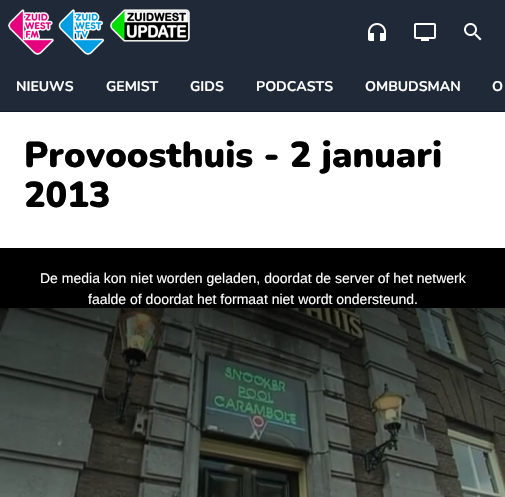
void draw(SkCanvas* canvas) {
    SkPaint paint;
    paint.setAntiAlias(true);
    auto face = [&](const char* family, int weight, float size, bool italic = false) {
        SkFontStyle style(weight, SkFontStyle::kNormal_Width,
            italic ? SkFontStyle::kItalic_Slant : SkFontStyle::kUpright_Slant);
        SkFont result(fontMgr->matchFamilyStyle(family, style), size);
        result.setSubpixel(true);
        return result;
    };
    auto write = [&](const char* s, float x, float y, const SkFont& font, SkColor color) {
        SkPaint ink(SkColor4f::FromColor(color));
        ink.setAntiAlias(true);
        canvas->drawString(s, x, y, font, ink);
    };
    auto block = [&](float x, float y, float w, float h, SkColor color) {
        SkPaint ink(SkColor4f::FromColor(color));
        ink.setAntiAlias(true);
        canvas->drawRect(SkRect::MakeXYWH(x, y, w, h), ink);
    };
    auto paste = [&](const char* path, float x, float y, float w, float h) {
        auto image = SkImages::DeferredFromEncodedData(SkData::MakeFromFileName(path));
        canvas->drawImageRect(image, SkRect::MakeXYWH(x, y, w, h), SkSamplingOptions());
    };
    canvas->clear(SK_ColorWHITE);
    block(0, 0, 505, 111, SkColorSetRGB(31, 41, 55));
    block(0, 111, 505, 1, SkColorSetRGB(17, 24, 39));
    paste("pic1.png", 8, 9, 182, 46);
    paste("pic2.png", 368, 23, 18, 18);
    paste("pic3.png", 414, 23, 22, 18);
    paste("pic4.png", 464, 23, 18, 18);
    auto kFont1 = face("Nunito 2", 200, 14);
    write("NIEUWS", 16, 91, kFont1, SK_ColorWHITE);
    write("GEMIST", 106, 91, kFont1, SK_ColorWHITE);
    write("GIDS", 190, 91, kFont1, SK_ColorWHITE);
    write("PODCASTS", 256, 91, kFont1, SK_ColorWHITE);
    write("OMBUDSMAN", 365, 91, kFont1, SK_ColorWHITE);
    write("O", 492, 91, kFont1, SK_ColorWHITE);
    auto kFont2 = face("Nunito", 200, 36);
    write("Provoosthuis - 2 januari", 24, 167, kFont2, SK_ColorBLACK);
    write("2013", 24, 207, kFont2, SK_ColorBLACK);
    block(0, 248, 505, 60, SK_ColorBLACK);
    paste("pic5.png", 0, 308, 505, 189);
    {
        const SkColor colors[] = {SkColorSetARGB(204, 0, 0, 0), SkColorSetARGB(0, 0, 0, 0)};
        const float stops[] = {0, 1};
        const SkPoint ends[] = {{252, 248}, {253, 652}};
        paint.setShader(SkGradientShader::MakeLinear(ends, colors, stops, 2, SkTileMode::kClamp));
        paint.setAlpha(255);
    }
    canvas->drawRect(SkRect::MakeXYWH(0, 308, 505, 189), paint);
    auto kFont3 = face("Liberation Sans", 400, 14);
    write("De media kon niet worden geladen, doordat de server of het netwerk", 40, 283, kFont3, SK_ColorWHITE);
    write("faalde of doordat het formaat niet wordt ondersteund.", 88, 304, kFont3, SK_ColorWHITE);
}
